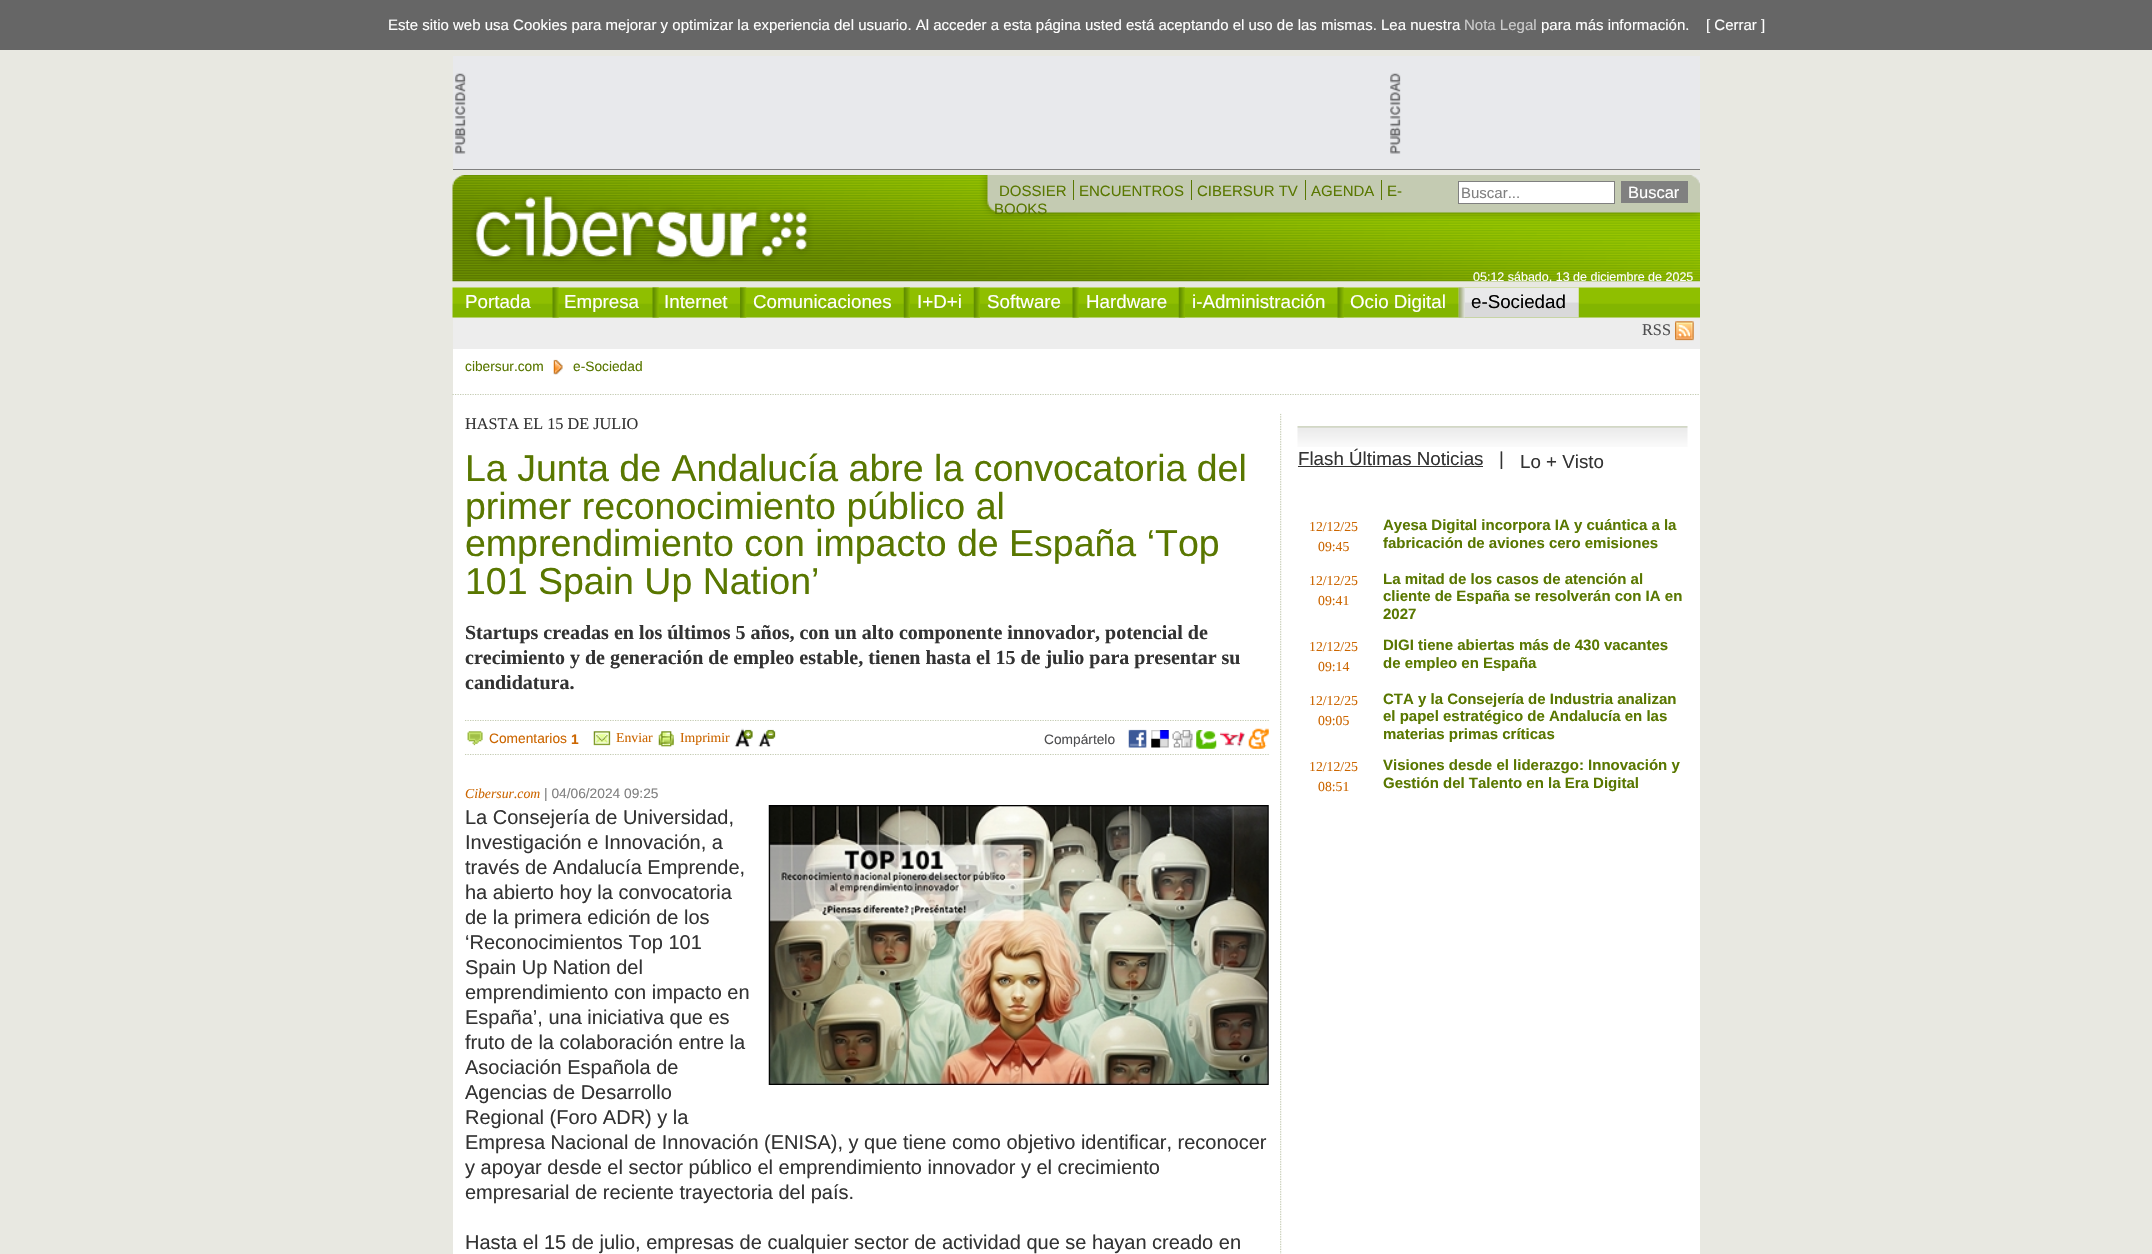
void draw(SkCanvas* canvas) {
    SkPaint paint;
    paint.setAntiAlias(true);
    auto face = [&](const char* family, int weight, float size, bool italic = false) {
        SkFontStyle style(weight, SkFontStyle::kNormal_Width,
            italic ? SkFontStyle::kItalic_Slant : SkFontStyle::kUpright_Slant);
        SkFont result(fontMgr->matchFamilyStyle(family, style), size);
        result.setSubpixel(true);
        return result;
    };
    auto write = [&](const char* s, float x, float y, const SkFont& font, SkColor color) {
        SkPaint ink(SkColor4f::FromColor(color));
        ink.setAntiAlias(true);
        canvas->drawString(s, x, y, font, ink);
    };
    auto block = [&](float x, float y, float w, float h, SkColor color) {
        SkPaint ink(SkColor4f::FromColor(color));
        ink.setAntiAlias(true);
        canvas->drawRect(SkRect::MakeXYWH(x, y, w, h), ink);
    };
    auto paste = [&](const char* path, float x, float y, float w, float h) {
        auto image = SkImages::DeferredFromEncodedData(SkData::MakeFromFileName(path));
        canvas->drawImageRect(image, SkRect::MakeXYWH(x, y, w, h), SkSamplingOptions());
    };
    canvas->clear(SkColorSetRGB(232, 232, 225));
    block(0, 0, 2152, 50, SkColorSetRGB(102, 102, 102));
    auto kFont1 = face("Liberation Sans", 400, 15);
    write("Este sitio web usa Cookies para mejorar y optimizar la experiencia del usuario. Al acceder a esta página usted está aceptando el uso de las mismas. Lea nuestra", 388, 30, kFont1, SK_ColorWHITE);
    write("Nota Legal", 1464, 30, kFont1, SkColorSetRGB(204, 204, 204));
    write("para más información.", 1541, 30, kFont1, SK_ColorWHITE);
    write("[ Cerrar ]", 1706, 30, kFont1, SK_ColorWHITE);
    block(453, 56, 1247, 113, SkColorSetRGB(232, 233, 236));
    block(453, 169, 1247, 1, SkColorSetRGB(128, 128, 128));
    paste("pic1.png", 455, 73, 11, 81);
    paste("pic2.png", 1390, 73, 11, 81);
    paste("pic3.png", 452, 175, 1248, 107);
    write("DOSSIER", 999, 196, kFont1, SkColorSetRGB(89, 119, 0));
    block(1073, 180, 1, 20, SkColorSetRGB(89, 119, 0));
    write("ENCUENTROS", 1079, 196, kFont1, SkColorSetRGB(89, 119, 0));
    block(1191, 180, 1, 20, SkColorSetRGB(89, 119, 0));
    write("CIBERSUR TV", 1197, 196, kFont1, SkColorSetRGB(89, 119, 0));
    block(1305, 180, 1, 20, SkColorSetRGB(89, 119, 0));
    write("AGENDA", 1311, 196, kFont1, SkColorSetRGB(89, 119, 0));
    block(1381, 180, 1, 20, SkColorSetRGB(89, 119, 0));
    write("E-", 1387, 196, kFont1, SkColorSetRGB(89, 119, 0));
    write("BOOKS", 994, 214, kFont1, SkColorSetRGB(89, 119, 0));
    paint.setColor(SK_ColorWHITE);
    canvas->drawRect(SkRect::MakeXYWH(1458.5f, 181.5f, 156, 22), paint);
    paint.setStyle(SkPaint::kStroke_Style);
    paint.setStrokeWidth(1);
    paint.setColor(SkColorSetRGB(128, 128, 128));
    canvas->drawRect(SkRect::MakeXYWH(1458.5f, 181.5f, 156, 22), paint);
    write("Buscar...", 1461, 198, kFont1, SkColorSetRGB(128, 128, 128));
    block(1621, 181, 67, 22, SkColorSetRGB(128, 128, 128));
    auto kFont2 = face("Liberation Sans", 400, 16.5f);
    write("Buscar", 1628, 198, kFont2, SK_ColorWHITE);
    auto kFont3 = face("Liberation Sans", 400, 12.5f);
    write("05:12 sábado, 13 de diciembre de 2025", 1473, 281, kFont3, SK_ColorWHITE);
    paste("pic4.png", 452, 287, 1248, 31);
    auto kFont4 = face("Liberation Sans", 400, 18.75f);
    write("Portada", 465, 308, kFont4, SK_ColorWHITE);
    paste("pic5.png", 552, 287, 7, 31);
    write("Empresa", 564, 308, kFont4, SK_ColorWHITE);
    paste("pic6.png", 652, 287, 7, 31);
    write("Internet", 664, 308, kFont4, SK_ColorWHITE);
    paste("pic7.png", 740, 287, 7, 31);
    write("Comunicaciones", 753, 308, kFont4, SK_ColorWHITE);
    paste("pic8.png", 903, 287, 7, 31);
    write("I+D+i", 917, 308, kFont4, SK_ColorWHITE);
    paste("pic8.png", 973, 287, 7, 31);
    write("Software", 987, 308, kFont4, SK_ColorWHITE);
    paste("pic5.png", 1072, 287, 7, 31);
    write("Hardware", 1086, 308, kFont4, SK_ColorWHITE);
    paste("pic9.png", 1178, 287, 7, 31);
    write("i-Administración", 1192, 308, kFont4, SK_ColorWHITE);
    paste("pic5.png", 1337, 287, 7, 31);
    write("Ocio Digital", 1350, 308, kFont4, SK_ColorWHITE);
    paste("pic10.png", 1458, 287, 121, 31);
    paste("pic11.png", 1458, 287, 7, 31);
    write("e-Sociedad", 1471, 308, kFont4, SK_ColorBLACK);
    block(453, 318, 1247, 31, SkColorSetRGB(237, 237, 237));
    auto kFont5 = face("Liberation Serif", 400, 16.25f);
    write("RSS", 1642, 335, kFont5, SkColorSetRGB(78, 78, 80));
    paste("pic12.png", 1675, 321, 19, 20);
    block(453, 349, 1247, 46, SK_ColorWHITE);
    paint.setStrokeWidth(1.2f);
    paint.setColor(SkColorSetRGB(196, 203, 178));
    paint.setPathEffect(SkDashPathEffect::Make({{1.25f, 1.25f}}, 0));
    canvas->drawPath(SkPathBuilder().moveTo(452.5f, 394.5f).lineTo(1700, 394.5f).detach(), paint);
    paint.setPathEffect(nullptr);
    auto kFont6 = face("Liberation Sans", 400, 13.75f);
    write("cibersur.com", 465, 371, kFont6, SkColorSetRGB(89, 119, 0));
    paste("pic13.png", 553, 359, 10, 16);
    write("e-Sociedad", 573, 371, kFont6, SkColorSetRGB(89, 119, 0));
    block(453, 395, 1247, 859, SK_ColorWHITE);
    paste("pic14.png", 1280, 413, 2, 841);
    write("HASTA EL 15 DE JULIO", 465, 429, kFont5, SkColorSetRGB(51, 51, 51));
    auto kFont7 = face("Liberation Sans", 400, 37.5f);
    write("La Junta de Andalucía abre la convocatoria del", 465, 481, kFont7, SkColorSetRGB(89, 119, 0));
    write("primer reconocimiento público al", 465, 519, kFont7, SkColorSetRGB(89, 119, 0));
    write("emprendimiento con impacto de España ‘Top", 465, 556, kFont7, SkColorSetRGB(89, 119, 0));
    write("101 Spain Up Nation’", 465, 594, kFont7, SkColorSetRGB(89, 119, 0));
    auto kFont8 = face("Liberation Serif", 700, 20);
    write("Startups creadas en los últimos 5 años, con un alto componente innovador, potencial de", 465, 639, kFont8, SkColorSetRGB(51, 51, 51));
    write("crecimiento y de generación de empleo estable, tienen hasta el 15 de julio para presentar su", 465, 664, kFont8, SkColorSetRGB(51, 51, 51));
    write("candidatura.", 465, 689, kFont8, SkColorSetRGB(51, 51, 51));
    paint.setPathEffect(SkDashPathEffect::Make({{1.25f, 1.25f}}, 0));
    canvas->drawPath(SkPathBuilder().moveTo(465, 720.5f).lineTo(1269, 720.5f).detach(), paint);
    paint.setPathEffect(nullptr);
    paint.setPathEffect(SkDashPathEffect::Make({{1.25f, 1.25f}}, 0));
    canvas->drawPath(SkPathBuilder().moveTo(465, 754.5f).lineTo(1269, 754.5f).detach(), paint);
    paint.setPathEffect(nullptr);
    paste("pic15.png", 467, 731, 16, 15);
    write("Comentarios", 489, 743, kFont6, SkColorSetRGB(204, 102, 0));
    auto kFont9 = face("Liberation Sans", 700, 13.75f);
    write("1", 571, 744, kFont9, SkColorSetRGB(204, 102, 0));
    paste("pic16.png", 593, 731, 18, 15);
    auto kFont10 = face("Liberation Serif", 400, 13.75f);
    write("Enviar", 616, 742, kFont10, SkColorSetRGB(204, 102, 0));
    paste("pic17.png", 658, 731, 16, 16);
    write("Imprimir", 680, 742, kFont10, SkColorSetRGB(204, 102, 0));
    paste("pic18.png", 734, 728, 19, 19);
    paste("pic19.png", 758, 729, 18, 18);
    write("Compártelo", 1044, 744, kFont6, SkColorSetRGB(78, 78, 80));
    paste("pic20.png", 1128, 729, 19, 19);
    paste("pic21.png", 1151, 730, 18, 18);
    paste("pic22.png", 1172, 730, 21, 18);
    paste("pic23.png", 1196, 730, 21, 19);
    paste("pic24.png", 1220, 732, 25, 15);
    paste("pic25.png", 1248, 728, 21, 21);
    auto kFont11 = face("Liberation Serif", 400, 13.75f, true);
    write("Cibersur.com", 465, 798, kFont11, SkColorSetRGB(204, 102, 0));
    write("| 04/06/2024 09:25", 544, 798, kFont6, SkColorSetRGB(128, 128, 128));
    auto kFont12 = face("Liberation Sans", 400, 20);
    write("La Consejería de Universidad,", 465, 824, kFont12, SkColorSetRGB(51, 51, 51));
    paste("pic26.png", 768, 805, 501, 280);
    write("Investigación e Innovación, a", 465, 849, kFont12, SkColorSetRGB(51, 51, 51));
    write("través de Andalucía Emprende,", 465, 874, kFont12, SkColorSetRGB(51, 51, 51));
    write("ha abierto hoy la convocatoria", 465, 899, kFont12, SkColorSetRGB(51, 51, 51));
    write("de la primera edición de los", 465, 924, kFont12, SkColorSetRGB(51, 51, 51));
    write("‘Reconocimientos Top 101", 465, 949, kFont12, SkColorSetRGB(51, 51, 51));
    write("Spain Up Nation del", 465, 974, kFont12, SkColorSetRGB(51, 51, 51));
    write("emprendimiento con impacto en", 465, 999, kFont12, SkColorSetRGB(51, 51, 51));
    write("España’, una iniciativa que es", 465, 1024, kFont12, SkColorSetRGB(51, 51, 51));
    write("fruto de la colaboración entre la", 465, 1049, kFont12, SkColorSetRGB(51, 51, 51));
    write("Asociación Española de", 465, 1074, kFont12, SkColorSetRGB(51, 51, 51));
    write("Agencias de Desarrollo", 465, 1099, kFont12, SkColorSetRGB(51, 51, 51));
    write("Regional (Foro ADR) y la", 465, 1124, kFont12, SkColorSetRGB(51, 51, 51));
    write("Empresa Nacional de Innovación (ENISA), y que tiene como objetivo identificar, reconocer", 465, 1149, kFont12, SkColorSetRGB(51, 51, 51));
    write("y apoyar desde el sector público el emprendimiento innovador y el crecimiento", 465, 1174, kFont12, SkColorSetRGB(51, 51, 51));
    write("empresarial de reciente trayectoria del país.", 465, 1199, kFont12, SkColorSetRGB(51, 51, 51));
    write("Hasta el 15 de julio, empresas de cualquier sector de actividad que se hayan creado en", 465, 1249, kFont12, SkColorSetRGB(51, 51, 51));
    paste("pic27.png", 1297, 426, 391, 21);
    write("Flash Últimas Noticias", 1298, 465, kFont4, SkColorSetRGB(51, 51, 51));
    block(1298, 466, 185, 1, SkColorSetRGB(51, 51, 51));
    write("|", 1499, 465, kFont4, SkColorSetRGB(51, 51, 51));
    write("Lo + Visto", 1520, 468, kFont4, SkColorSetRGB(51, 51, 51));
    write("12/12/25", 1309, 531, kFont10, SkColorSetRGB(204, 102, 0));
    write("09:45", 1318, 551, kFont10, SkColorSetRGB(204, 102, 0));
    auto kFont13 = face("Liberation Sans", 700, 15);
    write("Ayesa Digital incorpora IA y cuántica a la", 1383, 530, kFont13, SkColorSetRGB(89, 119, 0));
    write("fabricación de aviones cero emisiones", 1383, 548, kFont13, SkColorSetRGB(89, 119, 0));
    write("12/12/25", 1309, 585, kFont10, SkColorSetRGB(204, 102, 0));
    write("09:41", 1318, 605, kFont10, SkColorSetRGB(204, 102, 0));
    write("La mitad de los casos de atención al", 1383, 584, kFont13, SkColorSetRGB(89, 119, 0));
    write("cliente de España se resolverán con IA en", 1383, 601, kFont13, SkColorSetRGB(89, 119, 0));
    write("2027", 1383, 619, kFont13, SkColorSetRGB(89, 119, 0));
    write("12/12/25", 1309, 651, kFont10, SkColorSetRGB(204, 102, 0));
    write("09:14", 1318, 671, kFont10, SkColorSetRGB(204, 102, 0));
    write("DIGI tiene abiertas más de 430 vacantes", 1383, 650, kFont13, SkColorSetRGB(89, 119, 0));
    write("de empleo en España", 1383, 668, kFont13, SkColorSetRGB(89, 119, 0));
    write("12/12/25", 1309, 705, kFont10, SkColorSetRGB(204, 102, 0));
    write("09:05", 1318, 725, kFont10, SkColorSetRGB(204, 102, 0));
    write("CTA y la Consejería de Industria analizan", 1383, 704, kFont13, SkColorSetRGB(89, 119, 0));
    write("el papel estratégico de Andalucía en las", 1383, 721, kFont13, SkColorSetRGB(89, 119, 0));
    write("materias primas críticas", 1383, 739, kFont13, SkColorSetRGB(89, 119, 0));
    write("12/12/25", 1309, 771, kFont10, SkColorSetRGB(204, 102, 0));
    write("08:51", 1318, 791, kFont10, SkColorSetRGB(204, 102, 0));
    write("Visiones desde el liderazgo: Innovación y", 1383, 770, kFont13, SkColorSetRGB(89, 119, 0));
    write("Gestión del Talento en la Era Digital", 1383, 788, kFont13, SkColorSetRGB(89, 119, 0));
}
